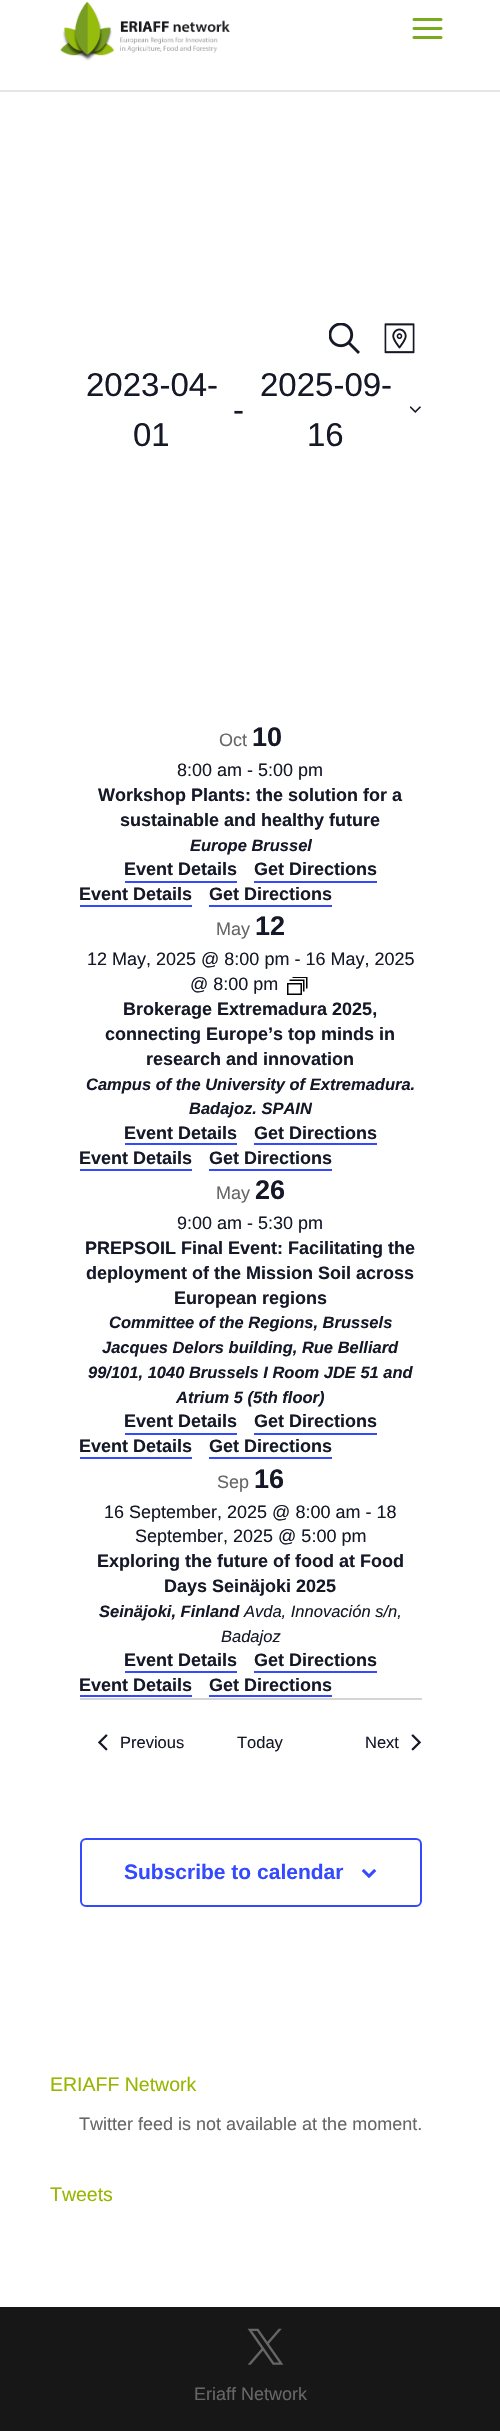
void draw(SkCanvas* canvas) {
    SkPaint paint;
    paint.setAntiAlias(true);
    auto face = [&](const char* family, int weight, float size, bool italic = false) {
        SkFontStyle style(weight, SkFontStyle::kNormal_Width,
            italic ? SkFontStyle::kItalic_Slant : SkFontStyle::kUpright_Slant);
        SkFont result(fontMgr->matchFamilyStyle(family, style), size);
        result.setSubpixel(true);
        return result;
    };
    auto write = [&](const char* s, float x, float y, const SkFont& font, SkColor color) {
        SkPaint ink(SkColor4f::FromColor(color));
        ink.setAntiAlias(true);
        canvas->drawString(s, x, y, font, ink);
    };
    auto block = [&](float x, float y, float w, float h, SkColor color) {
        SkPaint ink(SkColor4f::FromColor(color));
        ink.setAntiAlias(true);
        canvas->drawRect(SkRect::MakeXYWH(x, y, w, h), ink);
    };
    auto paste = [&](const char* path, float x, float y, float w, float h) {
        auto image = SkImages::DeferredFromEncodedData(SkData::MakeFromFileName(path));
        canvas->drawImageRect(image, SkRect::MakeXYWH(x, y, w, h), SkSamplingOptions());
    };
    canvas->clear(SK_ColorWHITE);
    block(0, 90, 500, 2, SkColorSetRGB(230, 230, 230));
    paste("pic1.png", 60, 2, 170, 59);
    paste("pic2.png", 412, 18, 31, 21);
    paste("pic3.png", 329, 323, 31, 31);
    paste("pic4.png", 384, 323, 31, 31);
    auto kFont1 = face("Liberation Sans", 400, 33);
    write("2023-04-", 86, 396, kFont1, SkColorSetRGB(20, 24, 39));
    write("01", 133, 446, kFont1, SkColorSetRGB(20, 24, 39));
    write("-", 233, 421, kFont1, SkColorSetRGB(20, 24, 39));
    write("2025-09-", 260, 396, kFont1, SkColorSetRGB(20, 24, 39));
    write("16", 307, 446, kFont1, SkColorSetRGB(20, 24, 39));
    paste("pic5.png", 410, 406, 11, 7);
    auto kFont2 = face("Liberation Sans", 400, 18);
    write("Oct", 219, 746, kFont2, SkColorSetRGB(102, 102, 102));
    auto kFont3 = face("Liberation Sans", 700, 27);
    write("10", 252, 746, kFont3, SkColorSetRGB(20, 24, 39));
    write("8:00 am - 5:00 pm", 177, 776, kFont2, SkColorSetRGB(20, 24, 39));
    auto kFont4 = face("Liberation Sans", 700, 18);
    write("Workshop Plants: the solution for a", 98, 801, kFont4, SkColorSetRGB(20, 24, 39));
    write("sustainable and healthy future", 120, 826, kFont4, SkColorSetRGB(20, 24, 39));
    auto kFont5 = face("Liberation Sans", 700, 16.5f, true);
    write("Europe Brussel", 190, 851, kFont5, SkColorSetRGB(20, 24, 39));
    write("Event Details", 124, 875, kFont4, SkColorSetRGB(20, 24, 39));
    block(125, 881, 112, 2, SkColorSetRGB(51, 74, 255));
    write("Get Directions", 254, 875, kFont4, SkColorSetRGB(20, 24, 39));
    block(254, 881, 123, 2, SkColorSetRGB(51, 74, 255));
    write("Event Details", 79, 900, kFont4, SkColorSetRGB(20, 24, 39));
    block(80, 905, 112, 2, SkColorSetRGB(51, 74, 255));
    write("Get Directions", 209, 900, kFont4, SkColorSetRGB(20, 24, 39));
    block(209, 905, 123, 2, SkColorSetRGB(51, 74, 255));
    write("May", 216, 935, kFont2, SkColorSetRGB(102, 102, 102));
    write("12", 255, 935, kFont3, SkColorSetRGB(20, 24, 39));
    write("12 May, 2025 @ 8:00 pm - 16 May, 2025", 87, 965, kFont2, SkColorSetRGB(20, 24, 39));
    write("@ 8:00 pm", 190, 990, kFont2, SkColorSetRGB(20, 24, 39));
    paste("pic6.png", 287, 977, 21, 18);
    write("Brokerage Extremadura 2025,", 123, 1015, kFont4, SkColorSetRGB(20, 24, 39));
    write("connecting Europe’s top minds in", 105, 1040, kFont4, SkColorSetRGB(20, 24, 39));
    write("research and innovation", 146, 1065, kFont4, SkColorSetRGB(20, 24, 39));
    write("Campus of the University of Extremadura.", 86, 1090, kFont5, SkColorSetRGB(20, 24, 39));
    write("Badajoz. SPAIN", 189, 1114, kFont5, SkColorSetRGB(20, 24, 39));
    write("Event Details", 124, 1139, kFont4, SkColorSetRGB(20, 24, 39));
    block(125, 1143, 112, 2, SkColorSetRGB(51, 74, 255));
    write("Get Directions", 254, 1139, kFont4, SkColorSetRGB(20, 24, 39));
    block(254, 1143, 123, 2, SkColorSetRGB(51, 74, 255));
    write("Event Details", 79, 1164, kFont4, SkColorSetRGB(20, 24, 39));
    block(80, 1169, 112, 2, SkColorSetRGB(51, 74, 255));
    write("Get Directions", 209, 1164, kFont4, SkColorSetRGB(20, 24, 39));
    block(209, 1169, 123, 2, SkColorSetRGB(51, 74, 255));
    write("May", 216, 1199, kFont2, SkColorSetRGB(102, 102, 102));
    write("26", 255, 1199, kFont3, SkColorSetRGB(20, 24, 39));
    write("9:00 am - 5:30 pm", 177, 1229, kFont2, SkColorSetRGB(20, 24, 39));
    write("PREPSOIL Final Event: Facilitating the", 85, 1254, kFont4, SkColorSetRGB(20, 24, 39));
    write("deployment of the Mission Soil across", 86, 1279, kFont4, SkColorSetRGB(20, 24, 39));
    write("European regions", 174, 1304, kFont4, SkColorSetRGB(20, 24, 39));
    write("Committee of the Regions, Brussels", 109, 1328, kFont5, SkColorSetRGB(20, 24, 39));
    write("Jacques Delors building, Rue Belliard", 102, 1353, kFont5, SkColorSetRGB(20, 24, 39));
    write("99/101, 1040 Brussels I Room JDE 51 and", 88, 1378, kFont5, SkColorSetRGB(20, 24, 39));
    write("Atrium 5 (5th floor)", 176, 1403, kFont5, SkColorSetRGB(20, 24, 39));
    write("Event Details", 124, 1427, kFont4, SkColorSetRGB(20, 24, 39));
    block(125, 1433, 112, 2, SkColorSetRGB(51, 74, 255));
    write("Get Directions", 254, 1427, kFont4, SkColorSetRGB(20, 24, 39));
    block(254, 1433, 123, 2, SkColorSetRGB(51, 74, 255));
    write("Event Details", 79, 1452, kFont4, SkColorSetRGB(20, 24, 39));
    block(80, 1457, 112, 2, SkColorSetRGB(51, 74, 255));
    write("Get Directions", 209, 1452, kFont4, SkColorSetRGB(20, 24, 39));
    block(209, 1457, 123, 2, SkColorSetRGB(51, 74, 255));
    write("Sep", 217, 1488, kFont2, SkColorSetRGB(102, 102, 102));
    write("16", 254, 1488, kFont3, SkColorSetRGB(20, 24, 39));
    write("16 September, 2025 @ 8:00 am - 18", 104, 1518, kFont2, SkColorSetRGB(20, 24, 39));
    write("September, 2025 @ 5:00 pm", 135, 1542, kFont2, SkColorSetRGB(20, 24, 39));
    write("Exploring the future of food at Food", 97, 1567, kFont4, SkColorSetRGB(20, 24, 39));
    write("Days Seinäjoki 2025", 164, 1592, kFont4, SkColorSetRGB(20, 24, 39));
    write("Seinäjoki, Finland", 99, 1617, kFont5, SkColorSetRGB(20, 24, 39));
    auto kFont6 = face("Liberation Sans", 400, 16.5f, true);
    write("Avda, Innovación s/n,", 244, 1617, kFont6, SkColorSetRGB(20, 24, 39));
    write("Badajoz", 221, 1642, kFont6, SkColorSetRGB(20, 24, 39));
    write("Event Details", 124, 1666, kFont4, SkColorSetRGB(20, 24, 39));
    block(125, 1671, 112, 2, SkColorSetRGB(51, 74, 255));
    write("Get Directions", 254, 1666, kFont4, SkColorSetRGB(20, 24, 39));
    block(254, 1671, 123, 2, SkColorSetRGB(51, 74, 255));
    write("Event Details", 79, 1691, kFont4, SkColorSetRGB(20, 24, 39));
    block(80, 1695, 112, 2, SkColorSetRGB(51, 74, 255));
    write("Get Directions", 209, 1691, kFont4, SkColorSetRGB(20, 24, 39));
    block(209, 1695, 123, 2, SkColorSetRGB(51, 74, 255));
    block(80, 1698, 342, 2, SkColorSetRGB(213, 213, 213));
    paste("pic7.png", 98, 1734, 10, 17);
    auto kFont7 = face("Liberation Sans", 400, 16.5f);
    write("Previous", 120, 1748, kFont7, SkColorSetRGB(20, 24, 39));
    write("Today", 237, 1748, kFont7, SkColorSetRGB(20, 24, 39));
    write("Next", 365, 1748, kFont7, SkColorSetRGB(20, 24, 39));
    paste("pic8.png", 411, 1734, 11, 17);
    paint.setStyle(SkPaint::kStroke_Style);
    paint.setStrokeWidth(2);
    paint.setColor(SkColorSetRGB(51, 74, 255));
    canvas->drawRoundRect(SkRect::MakeXYWH(81, 1839, 340, 67), 5, 5, paint);
    auto kFont8 = face("Liberation Sans", 700, 21);
    write("Subscribe to calendar", 124, 1879, kFont8, SkColorSetRGB(51, 74, 255));
    paste("pic9.png", 362, 1869, 15, 9);
    auto kFont9 = face("Liberation Sans", 400, 19.5f);
    write("ERIAFF Network", 50, 2091, kFont9, SkColorSetRGB(153, 181, 0));
    write("Twitter feed is not available at the moment.", 79, 2130, kFont2, SkColorSetRGB(102, 102, 102));
    write("Tweets", 50, 2201, kFont9, SkColorSetRGB(153, 181, 0));
    block(0, 2307, 500, 124, SkColorSetRGB(23, 23, 23));
    paste("pic10.png", 247, 2328, 37, 37);
    write("Eriaff Network", 194, 2400, kFont2, SkColorSetRGB(102, 102, 102));
}
